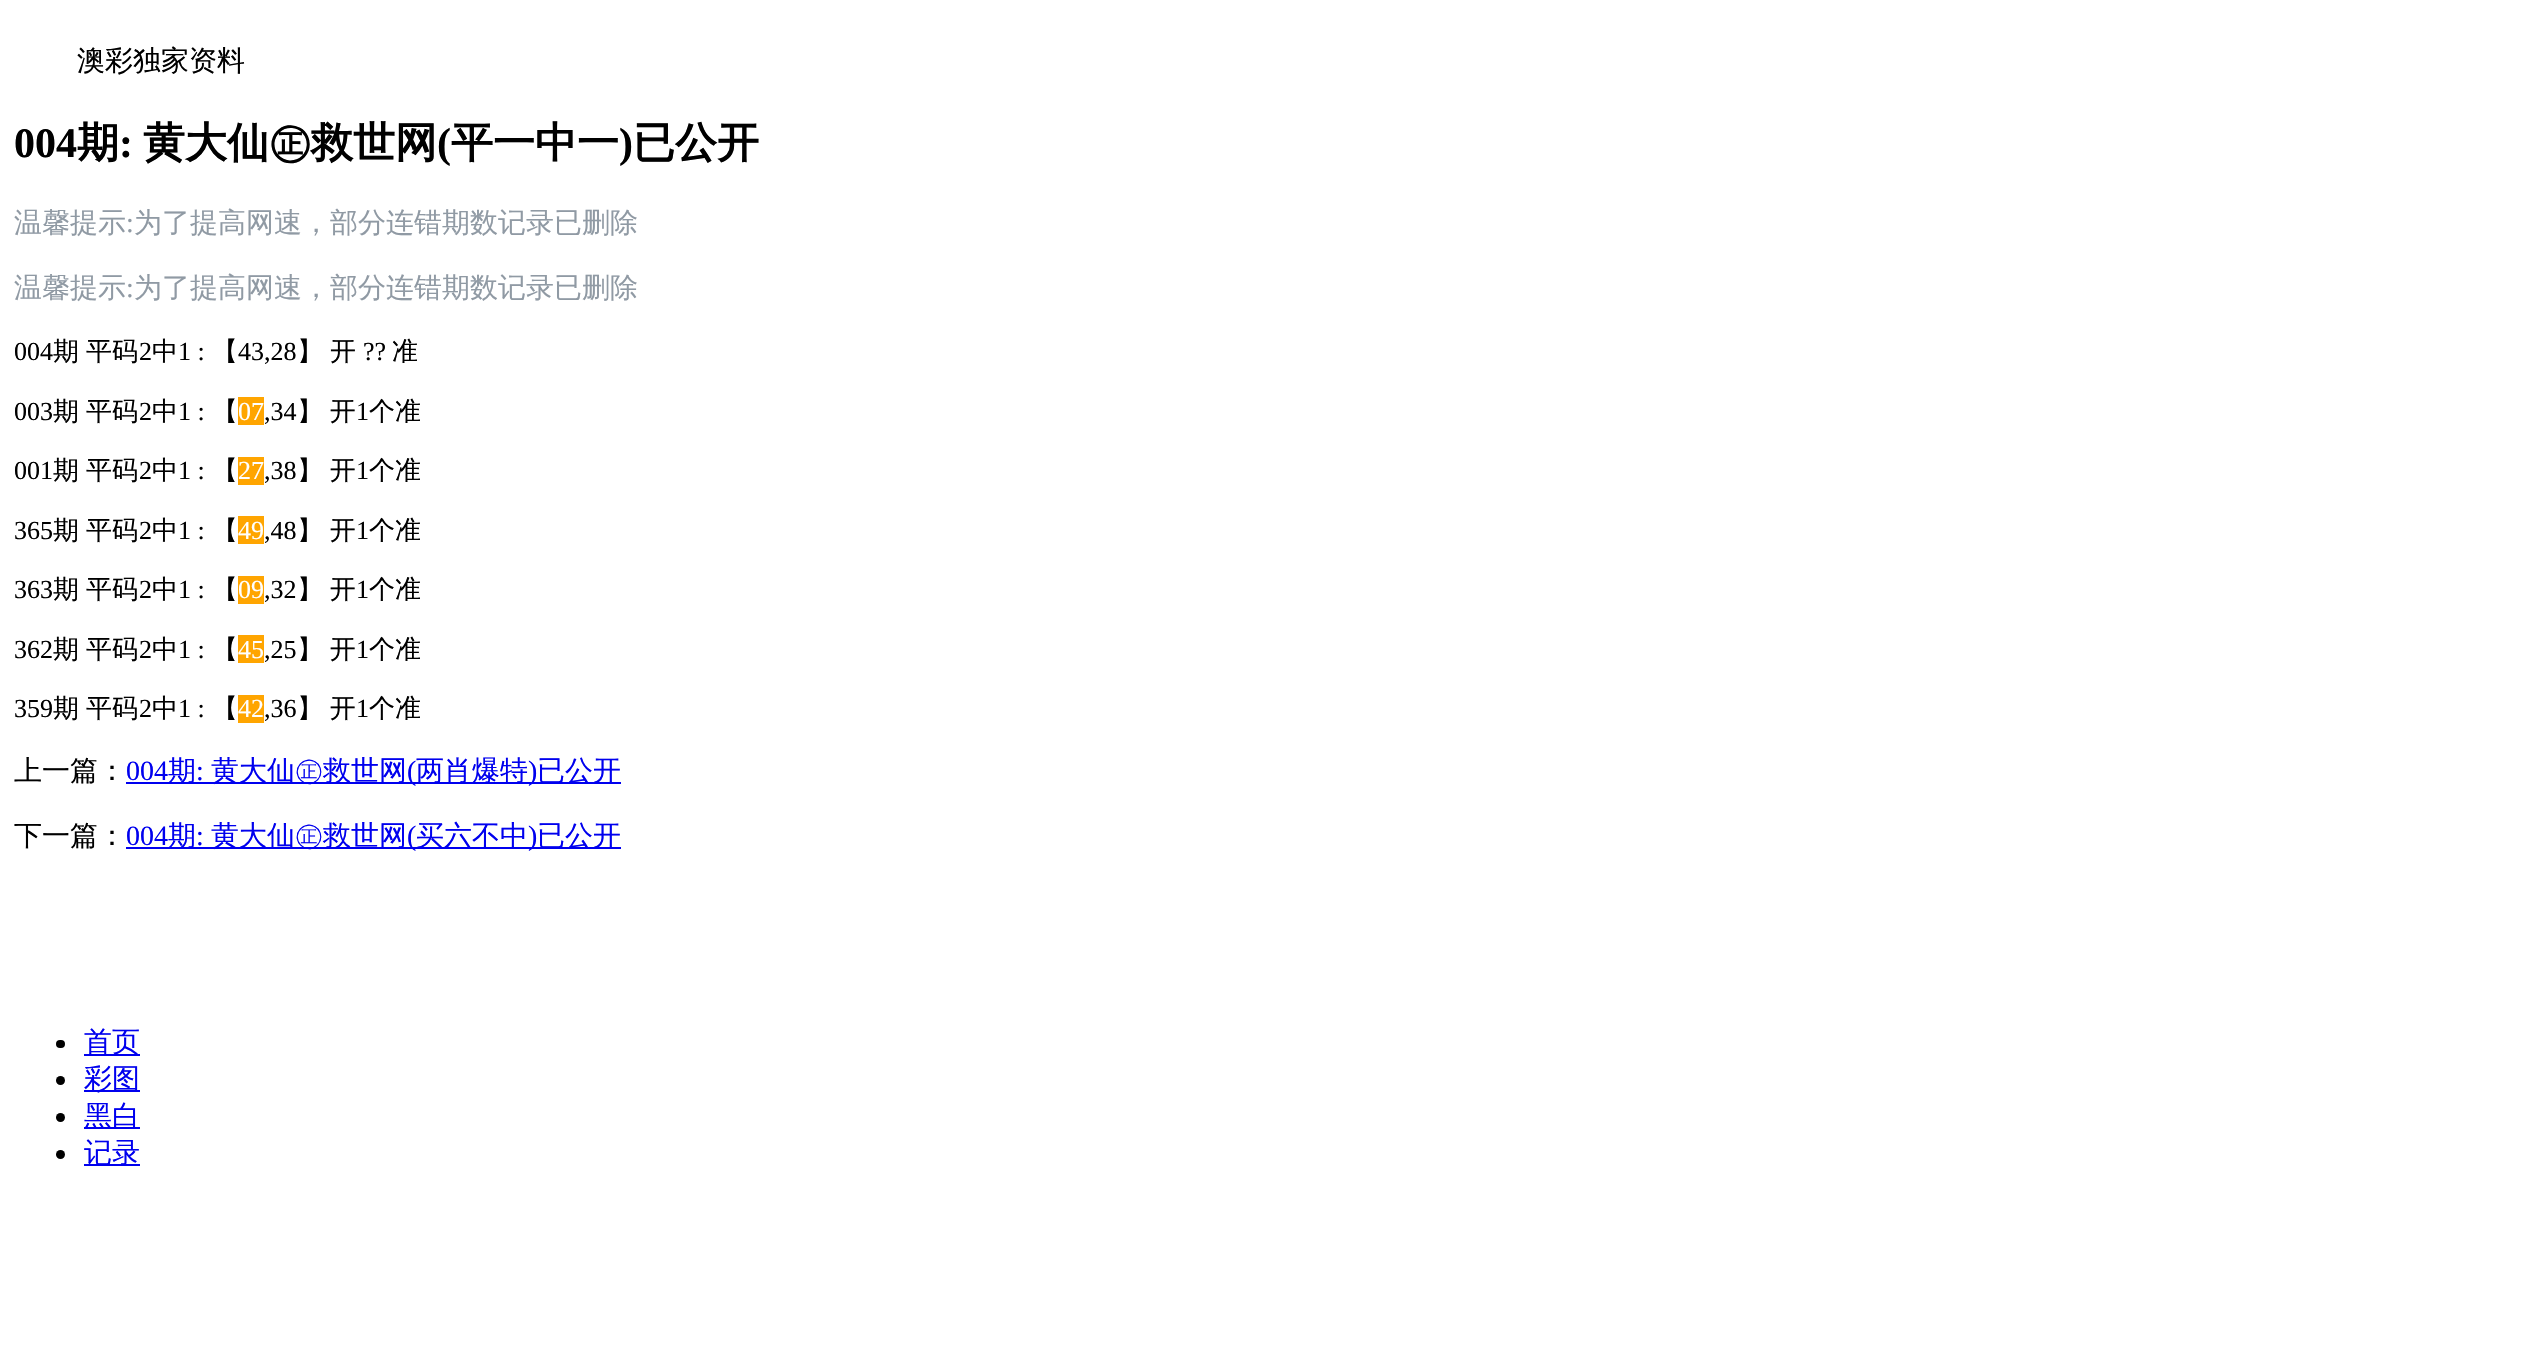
void draw(SkCanvas* canvas) {
    SkPaint paint;
    paint.setAntiAlias(true);
    auto face = [&](const char* family, int weight, float size, bool italic = false) {
        SkFontStyle style(weight, SkFontStyle::kNormal_Width,
            italic ? SkFontStyle::kItalic_Slant : SkFontStyle::kUpright_Slant);
        SkFont result(fontMgr->matchFamilyStyle(family, style), size);
        result.setSubpixel(true);
        return result;
    };
    auto write = [&](const char* s, float x, float y, const SkFont& font, SkColor color) {
        SkPaint ink(SkColor4f::FromColor(color));
        ink.setAntiAlias(true);
        canvas->drawString(s, x, y, font, ink);
    };
    auto writeSpaced = [&](const char* s, float x, float y, const SkFont& font, const SkPaint& ink, float letter, float word) {
        std::vector<SkGlyphID> glyphs(font.countText(s, strlen(s), SkTextEncoding::kUTF8));
        std::vector<float> xs(glyphs.size());
        font.textToGlyphs(s, strlen(s), SkTextEncoding::kUTF8, glyphs);
        font.getXPos(glyphs, xs, x);
        float extra = 0;
        for (size_t i = 0; i < glyphs.size(); i++) {
            xs[i] += extra;
            extra += letter + word * (glyphs[i] == font.unicharToGlyph(' '));
        }
        canvas->drawTextBlob(SkTextBlob::MakeFromPosHGlyphs(glyphs, xs, y, font), 0, 0, ink);
    };
    auto block = [&](float x, float y, float w, float h, SkColor color) {
        SkPaint ink(SkColor4f::FromColor(color));
        ink.setAntiAlias(true);
        canvas->drawRect(SkRect::MakeXYWH(x, y, w, h), ink);
    };
    auto card = [&](float x, float y, float w, float h, float radius, SkColor color) {
        SkPaint ink(SkColor4f::FromColor(color));
        ink.setAntiAlias(true);
        canvas->drawRoundRect(SkRect::MakeXYWH(x, y, w, h), radius, radius, ink);
    };
    canvas->clear(SK_ColorWHITE);
    auto kFont1 = face("WenQuanYi Zen Hei", 500, 28);
    write("澳彩独家资料", 77, 70, kFont1, SK_ColorBLACK);
    auto kFont2 = face("Liberation Serif", 700, 42);
    write("004", 14, 157, kFont2, SK_ColorBLACK);
    auto kFont3 = face("WenQuanYi Zen Hei", 700, 42);
    write("期", 77, 157, kFont3, SK_ColorBLACK);
    write(":", 119, 157, kFont2, SK_ColorBLACK);
    write("黄大仙㊣救世网", 143, 157, kFont3, SK_ColorBLACK);
    write("(", 437, 157, kFont2, SK_ColorBLACK);
    write("平一中一", 451, 157, kFont3, SK_ColorBLACK);
    write(")", 619, 157, kFont2, SK_ColorBLACK);
    write("已公开", 633, 157, kFont3, SK_ColorBLACK);
    write("温馨提示", 14, 232, kFont1, SkColorSetRGB(144, 154, 164));
    auto kFont4 = face("Liberation Serif", 400, 28);
    write(":", 126, 232, kFont4, SkColorSetRGB(144, 154, 164));
    write("为了提高网速，部分连错期数记录已删除", 134, 232, kFont1, SkColorSetRGB(144, 154, 164));
    write("温馨提示", 14, 297, kFont1, SkColorSetRGB(144, 154, 164));
    write(":", 126, 297, kFont4, SkColorSetRGB(144, 154, 164));
    write("为了提高网速，部分连错期数记录已删除", 134, 297, kFont1, SkColorSetRGB(144, 154, 164));
    auto kFont5 = face("Liberation Serif", 400, 26);
    write("004", 14, 360, kFont5, SK_ColorBLACK);
    auto kFont6 = face("WenQuanYi Zen Hei", 500, 26);
    write("期", 53, 360, kFont6, SK_ColorBLACK);
    write("平码", 86, 360, kFont6, SK_ColorBLACK);
    write("2", 139, 360, kFont5, SK_ColorBLACK);
    write("中", 152, 360, kFont6, SK_ColorBLACK);
    write("1 :", 178, 360, kFont5, SK_ColorBLACK);
    write("【", 212, 360, kFont6, SK_ColorBLACK);
    write("43,28", 238, 360, kFont5, SK_ColorBLACK);
    write("】", 297, 360, kFont6, SK_ColorBLACK);
    write("开", 330, 360, kFont6, SK_ColorBLACK);
    write("?\077", 363, 360, kFont5, SK_ColorBLACK);
    write("准", 392, 360, kFont6, SK_ColorBLACK);
    write("003", 14, 420, kFont5, SK_ColorBLACK);
    write("期", 53, 420, kFont6, SK_ColorBLACK);
    write("平码", 86, 420, kFont6, SK_ColorBLACK);
    write("2", 139, 420, kFont5, SK_ColorBLACK);
    write("中", 152, 420, kFont6, SK_ColorBLACK);
    write("1 :", 178, 420, kFont5, SK_ColorBLACK);
    write("【", 212, 420, kFont6, SK_ColorBLACK);
    block(238, 397, 26, 28, SkColorSetRGB(255, 165, 0));
    write("07", 238, 420, kFont5, SK_ColorWHITE);
    write(",34", 264, 420, kFont5, SK_ColorBLACK);
    paint.setColor(SK_ColorBLACK);
    writeSpaced("】 开", 297, 420, kFont6, paint, 0, -1);
    write("1", 356, 420, kFont5, SK_ColorBLACK);
    write("个准", 369, 420, kFont6, SK_ColorBLACK);
    write("001", 14, 479, kFont5, SK_ColorBLACK);
    write("期", 53, 479, kFont6, SK_ColorBLACK);
    write("平码", 86, 479, kFont6, SK_ColorBLACK);
    write("2", 139, 479, kFont5, SK_ColorBLACK);
    write("中", 152, 479, kFont6, SK_ColorBLACK);
    write("1 :", 178, 479, kFont5, SK_ColorBLACK);
    write("【", 212, 479, kFont6, SK_ColorBLACK);
    block(238, 457, 26, 28, SkColorSetRGB(255, 165, 0));
    write("27", 238, 479, kFont5, SK_ColorWHITE);
    write(",38", 264, 479, kFont5, SK_ColorBLACK);
    writeSpaced("】 开", 297, 479, kFont6, paint, 0, -1);
    write("1", 356, 479, kFont5, SK_ColorBLACK);
    write("个准", 369, 479, kFont6, SK_ColorBLACK);
    write("365", 14, 539, kFont5, SK_ColorBLACK);
    write("期", 53, 539, kFont6, SK_ColorBLACK);
    write("平码", 86, 539, kFont6, SK_ColorBLACK);
    write("2", 139, 539, kFont5, SK_ColorBLACK);
    write("中", 152, 539, kFont6, SK_ColorBLACK);
    write("1 :", 178, 539, kFont5, SK_ColorBLACK);
    write("【", 212, 539, kFont6, SK_ColorBLACK);
    block(238, 516, 26, 28, SkColorSetRGB(255, 165, 0));
    write("49", 238, 539, kFont5, SK_ColorWHITE);
    write(",48", 264, 539, kFont5, SK_ColorBLACK);
    writeSpaced("】 开", 297, 539, kFont6, paint, 0, -1);
    write("1", 356, 539, kFont5, SK_ColorBLACK);
    write("个准", 369, 539, kFont6, SK_ColorBLACK);
    write("363", 14, 598, kFont5, SK_ColorBLACK);
    write("期", 53, 598, kFont6, SK_ColorBLACK);
    write("平码", 86, 598, kFont6, SK_ColorBLACK);
    write("2", 139, 598, kFont5, SK_ColorBLACK);
    write("中", 152, 598, kFont6, SK_ColorBLACK);
    write("1 :", 178, 598, kFont5, SK_ColorBLACK);
    write("【", 212, 598, kFont6, SK_ColorBLACK);
    block(238, 576, 26, 28, SkColorSetRGB(255, 165, 0));
    write("09", 238, 598, kFont5, SK_ColorWHITE);
    write(",32", 264, 598, kFont5, SK_ColorBLACK);
    writeSpaced("】 开", 297, 598, kFont6, paint, 0, -1);
    write("1", 356, 598, kFont5, SK_ColorBLACK);
    write("个准", 369, 598, kFont6, SK_ColorBLACK);
    write("362", 14, 658, kFont5, SK_ColorBLACK);
    write("期", 53, 658, kFont6, SK_ColorBLACK);
    write("平码", 86, 658, kFont6, SK_ColorBLACK);
    write("2", 139, 658, kFont5, SK_ColorBLACK);
    write("中", 152, 658, kFont6, SK_ColorBLACK);
    write("1 :", 178, 658, kFont5, SK_ColorBLACK);
    write("【", 212, 658, kFont6, SK_ColorBLACK);
    block(238, 635, 26, 28, SkColorSetRGB(255, 165, 0));
    write("45", 238, 658, kFont5, SK_ColorWHITE);
    write(",25", 264, 658, kFont5, SK_ColorBLACK);
    writeSpaced("】 开", 297, 658, kFont6, paint, 0, -1);
    write("1", 356, 658, kFont5, SK_ColorBLACK);
    write("个准", 369, 658, kFont6, SK_ColorBLACK);
    write("359", 14, 717, kFont5, SK_ColorBLACK);
    write("期", 53, 717, kFont6, SK_ColorBLACK);
    write("平码", 86, 717, kFont6, SK_ColorBLACK);
    write("2", 139, 717, kFont5, SK_ColorBLACK);
    write("中", 152, 717, kFont6, SK_ColorBLACK);
    write("1 :", 178, 717, kFont5, SK_ColorBLACK);
    write("【", 212, 717, kFont6, SK_ColorBLACK);
    block(238, 695, 26, 28, SkColorSetRGB(255, 165, 0));
    write("42", 238, 717, kFont5, SK_ColorWHITE);
    write(",36", 264, 717, kFont5, SK_ColorBLACK);
    writeSpaced("】 开", 297, 717, kFont6, paint, 0, -1);
    write("1", 356, 717, kFont5, SK_ColorBLACK);
    write("个准", 369, 717, kFont6, SK_ColorBLACK);
    write("上一篇：", 14, 780, kFont1, SK_ColorBLACK);
    write("004", 126, 780, kFont4, SkColorSetRGB(0, 0, 238));
    block(126, 782, 495, 2, SkColorSetRGB(0, 0, 238));
    write("期", 168, 780, kFont1, SkColorSetRGB(0, 0, 238));
    write(":", 196, 780, kFont4, SkColorSetRGB(0, 0, 238));
    write("黄大仙㊣救世网", 211, 780, kFont1, SkColorSetRGB(0, 0, 238));
    write("(", 407, 780, kFont4, SkColorSetRGB(0, 0, 238));
    write("两肖爆特", 416, 780, kFont1, SkColorSetRGB(0, 0, 238));
    write(")", 528, 780, kFont4, SkColorSetRGB(0, 0, 238));
    write("已公开", 537, 780, kFont1, SkColorSetRGB(0, 0, 238));
    write("下一篇：", 14, 845, kFont1, SK_ColorBLACK);
    write("004", 126, 845, kFont4, SkColorSetRGB(0, 0, 238));
    block(126, 847, 495, 2, SkColorSetRGB(0, 0, 238));
    write("期", 168, 845, kFont1, SkColorSetRGB(0, 0, 238));
    write(":", 196, 845, kFont4, SkColorSetRGB(0, 0, 238));
    write("黄大仙㊣救世网", 211, 845, kFont1, SkColorSetRGB(0, 0, 238));
    write("(", 407, 845, kFont4, SkColorSetRGB(0, 0, 238));
    write("买六不中", 416, 845, kFont1, SkColorSetRGB(0, 0, 238));
    write(")", 528, 845, kFont4, SkColorSetRGB(0, 0, 238));
    write("已公开", 537, 845, kFont1, SkColorSetRGB(0, 0, 238));
    card(56, 1040, 9, 8, 4, SK_ColorBLACK);
    block(84, 1054, 56, 2, SkColorSetRGB(0, 0, 238));
    write("首页", 84, 1051, kFont1, SkColorSetRGB(0, 0, 238));
    canvas->drawCircle(60.5f, 1080.5f, 4.5f, paint);
    block(84, 1090, 56, 2, SkColorSetRGB(0, 0, 238));
    write("彩图", 84, 1088, kFont1, SkColorSetRGB(0, 0, 238));
    canvas->drawCircle(60.5f, 1117.5f, 4.5f, paint);
    block(84, 1127, 56, 2, SkColorSetRGB(0, 0, 238));
    write("黑白", 84, 1125, kFont1, SkColorSetRGB(0, 0, 238));
    canvas->drawCircle(60.5f, 1154.5f, 4.5f, paint);
    block(84, 1164, 56, 2, SkColorSetRGB(0, 0, 238));
    write("记录", 84, 1162, kFont1, SkColorSetRGB(0, 0, 238));
}
